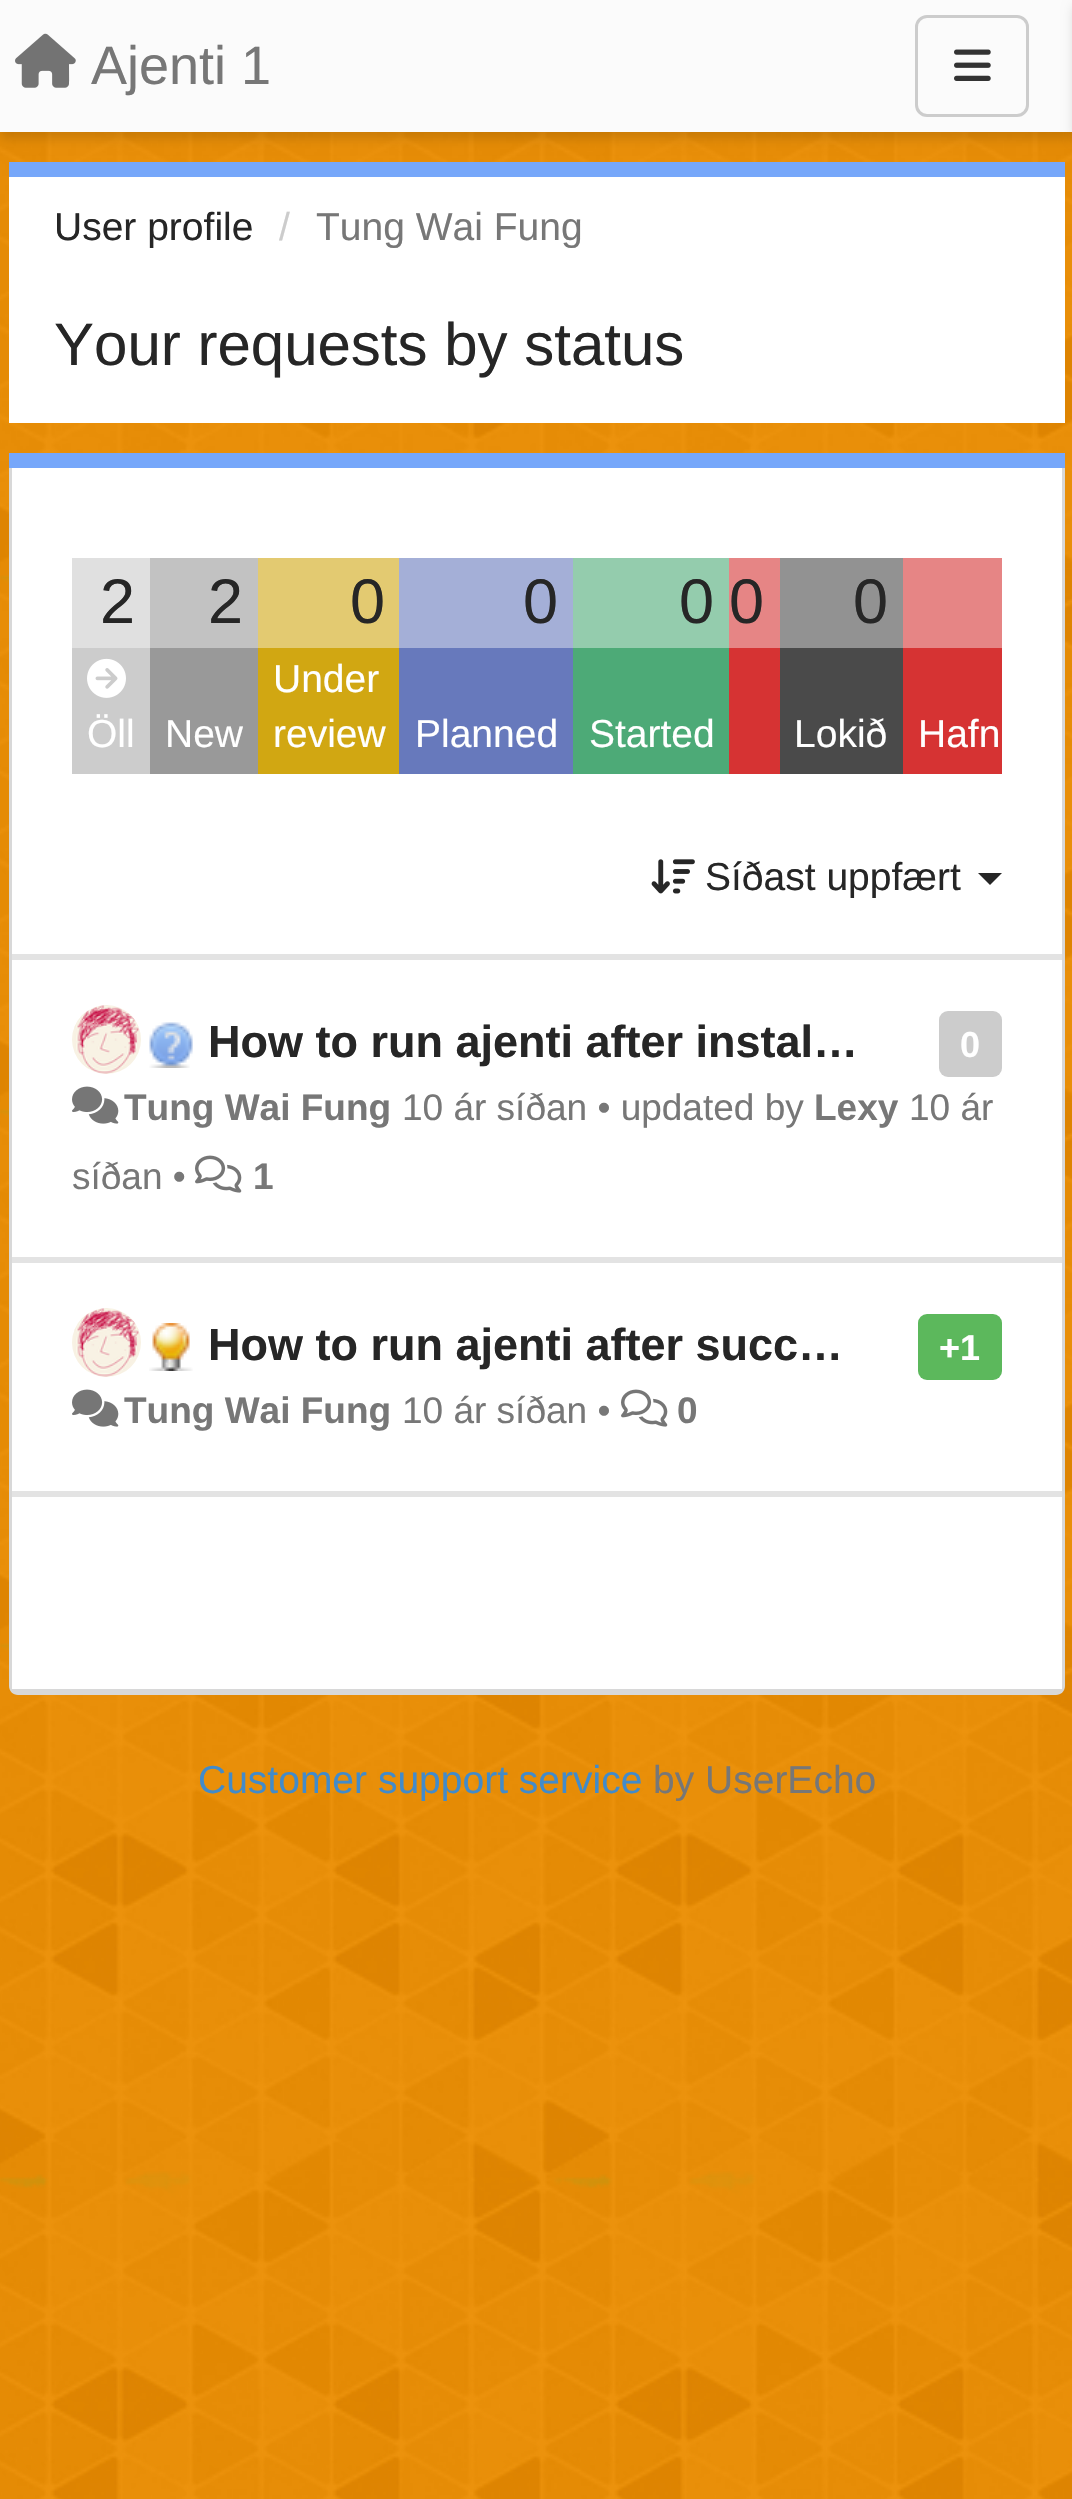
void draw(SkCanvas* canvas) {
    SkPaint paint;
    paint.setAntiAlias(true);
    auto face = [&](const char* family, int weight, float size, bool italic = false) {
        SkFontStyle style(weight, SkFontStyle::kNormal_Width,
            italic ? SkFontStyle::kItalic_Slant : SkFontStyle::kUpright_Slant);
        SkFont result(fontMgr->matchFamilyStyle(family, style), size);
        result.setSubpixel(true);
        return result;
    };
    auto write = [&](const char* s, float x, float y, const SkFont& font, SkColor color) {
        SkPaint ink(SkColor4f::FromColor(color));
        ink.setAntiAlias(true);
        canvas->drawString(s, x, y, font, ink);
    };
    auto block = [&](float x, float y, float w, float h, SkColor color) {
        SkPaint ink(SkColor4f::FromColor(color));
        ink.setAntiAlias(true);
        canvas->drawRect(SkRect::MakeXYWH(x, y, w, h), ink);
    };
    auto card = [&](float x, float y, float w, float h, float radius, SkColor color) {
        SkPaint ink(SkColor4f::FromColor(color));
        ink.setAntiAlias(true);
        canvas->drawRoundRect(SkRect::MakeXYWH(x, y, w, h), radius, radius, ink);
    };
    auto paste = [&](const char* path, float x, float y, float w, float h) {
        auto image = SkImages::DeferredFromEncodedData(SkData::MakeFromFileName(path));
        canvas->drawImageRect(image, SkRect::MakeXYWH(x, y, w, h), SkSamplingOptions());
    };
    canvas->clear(SK_ColorWHITE);
    paste("pic1.png", 0, 132, 1072, 2367);
    paint.setColor(SkColorSetARGB(38, 0, 0, 0));
    paint.setMaskFilter(SkMaskFilter::MakeBlur(kNormal_SkBlurStyle, 6));
    canvas->drawRect(SkRect::MakeXYWH(0, 6, 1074, 132), paint);
    paint.setMaskFilter(nullptr);
    block(0, 0, 1072, 132, SkColorSetRGB(251, 251, 251));
    paste("pic2.png", 15, 33, 61, 55);
    auto kFont1 = face("Liberation Sans", 400, 54);
    write("Ajenti 1", 91, 84, kFont1, SkColorSetRGB(119, 119, 119));
    paint.setStyle(SkPaint::kStroke_Style);
    paint.setStrokeWidth(3);
    paint.setColor(SkColorSetRGB(204, 204, 204));
    canvas->drawRoundRect(SkRect::MakeXYWH(916.5f, 16.5f, 111, 99), 10.5f, 10.5f, paint);
    paste("pic3.png", 954, 49, 37, 32);
    paint.setStyle(SkPaint::kFill_Style);
    paint.setColor(SkColorSetARGB(38, 0, 0, 0));
    paint.setMaskFilter(SkMaskFilter::MakeBlur(kNormal_SkBlurStyle, 6));
    canvas->drawRect(SkRect::MakeXYWH(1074, 6, 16, 132), paint);
    paint.setMaskFilter(nullptr);
    block(9, 177, 1056, 246, SK_ColorWHITE);
    block(9, 162, 1056, 15, SkColorSetRGB(118, 167, 250));
    auto kFont2 = face("Liberation Sans", 400, 39);
    write("User profile", 54, 240, kFont2, SkColorSetRGB(38, 38, 38));
    write("/", 279, 240, kFont2, SkColorSetRGB(204, 204, 204));
    write("Tung Wai Fung", 316, 240, kFont2, SkColorSetRGB(119, 119, 119));
    auto kFont3 = face("Liberation Sans", 400, 60);
    write("Your requests by status", 54, 365, kFont3, SkColorSetRGB(38, 38, 38));
    block(9, 453, 1056, 15, SkColorSetRGB(118, 167, 250));
    paint.setColor(SkColorSetRGB(227, 227, 227));
    canvas->drawPath(SkPathBuilder().moveTo(12, 468).lineTo(1062, 468).lineTo(1062, 1686).cubicTo(1062, 1688, 1059, 1689, 1056, 1689).lineTo(18, 1689).cubicTo(15, 1689, 12, 1688, 12, 1686).close().detach(), paint);
    paint.setColor(SkColorSetRGB(216, 216, 216));
    canvas->drawPath(SkPathBuilder(SkPathFillType::kEvenOdd).moveTo(9, 468).lineTo(1065, 468).lineTo(1065, 1686).cubicTo(1065, 1691, 1061, 1695, 1056, 1695).lineTo(18, 1695).cubicTo(13, 1695, 9, 1691, 9, 1686).close().moveTo(12, 468).lineTo(1062, 468).lineTo(1062, 1686).cubicTo(1062, 1688, 1059, 1689, 1056, 1689).lineTo(18, 1689).cubicTo(15, 1689, 12, 1688, 12, 1686).close().detach(), paint);
    block(12, 468, 1050, 486, SK_ColorWHITE);
    block(72, 558, 78, 90, SkColorSetRGB(224, 224, 224));
    auto kFont4 = face("Liberation Sans", 400, 63);
    write("2", 100, 623, kFont4, SkColorSetRGB(38, 38, 38));
    block(150, 558, 108, 90, SkColorSetRGB(194, 194, 194));
    write("2", 208, 623, kFont4, SkColorSetRGB(38, 38, 38));
    block(258, 558, 141, 90, SkColorSetRGB(227, 202, 113));
    write("0", 350, 623, kFont4, SkColorSetRGB(38, 38, 38));
    block(399, 558, 174, 90, SkColorSetRGB(164, 175, 215));
    write("0", 523, 623, kFont4, SkColorSetRGB(38, 38, 38));
    block(573, 558, 156, 90, SkColorSetRGB(148, 204, 173));
    write("0", 679, 623, kFont4, SkColorSetRGB(38, 38, 38));
    block(729, 558, 51, 90, SkColorSetRGB(230, 133, 133));
    write("0", 729, 623, kFont4, SkColorSetRGB(38, 38, 38));
    block(780, 558, 123, 90, SkColorSetRGB(146, 146, 146));
    write("0", 853, 623, kFont4, SkColorSetRGB(38, 38, 38));
    block(903, 558, 99, 90, SkColorSetRGB(230, 133, 133));
    block(72, 648, 78, 126, SkColorSetRGB(204, 204, 204));
    paste("pic4.png", 87, 658, 39, 40);
    write("Öll", 87, 747, kFont2, SK_ColorWHITE);
    block(150, 648, 108, 126, SkColorSetRGB(153, 153, 153));
    write("New", 165, 747, kFont2, SK_ColorWHITE);
    block(258, 648, 141, 126, SkColorSetRGB(209, 167, 18));
    write("Under", 273, 692, kFont2, SK_ColorWHITE);
    write("review", 273, 747, kFont2, SK_ColorWHITE);
    block(399, 648, 174, 126, SkColorSetRGB(103, 121, 188));
    write("Planned", 415, 747, kFont2, SK_ColorWHITE);
    block(573, 648, 156, 126, SkColorSetRGB(77, 170, 119));
    write("Started", 589, 747, kFont2, SK_ColorWHITE);
    block(729, 648, 51, 126, SkColorSetRGB(214, 51, 51));
    block(780, 648, 123, 126, SkColorSetRGB(74, 74, 74));
    write("Lokið", 794, 747, kFont2, SK_ColorWHITE);
    block(903, 648, 99, 126, SkColorSetRGB(214, 51, 51));
    write("Hafn", 918, 747, kFont2, SK_ColorWHITE);
    paste("pic5.png", 651, 859, 44, 35);
    write("Síðast uppfært", 705, 890, kFont2, SkColorSetRGB(38, 38, 38));
    paint.setColor(SkColorSetRGB(38, 38, 38));
    canvas->drawPath(SkPathBuilder().moveTo(978, 873).lineTo(1002, 873).lineTo(990, 885).close().detach(), paint);
    block(12, 960, 1050, 297, SK_ColorWHITE);
    paste("pic6.png", 72, 1005, 69, 69);
    paste("pic7.png", 149, 1022, 44, 46);
    auto kFont5 = face("Liberation Sans", 700, 45);
    write("How to run ajenti after instal…", 208, 1057, kFont5, SkColorSetRGB(38, 38, 38));
    card(939, 1011, 63, 66, 9, SkColorSetRGB(204, 204, 204));
    auto kFont6 = face("Liberation Sans", 700, 36);
    write("0", 960, 1057, kFont6, SK_ColorWHITE);
    paste("pic8.png", 72, 1086, 47, 38);
    auto kFont7 = face("Liberation Sans", 700, 37);
    write("Tung Wai Fung", 124, 1120, kFont7, SkColorSetRGB(119, 119, 119));
    auto kFont8 = face("Liberation Sans", 400, 37);
    write("10 ár síðan • updated by", 402, 1120, kFont8, SkColorSetRGB(119, 119, 119));
    write("Lexy", 814, 1120, kFont7, SkColorSetRGB(119, 119, 119));
    write("10 ár", 909, 1120, kFont8, SkColorSetRGB(119, 119, 119));
    write("síðan •", 72, 1189, kFont8, SkColorSetRGB(119, 119, 119));
    paste("pic9.png", 195, 1155, 47, 38);
    write("1", 253, 1189, kFont7, SkColorSetRGB(119, 119, 119));
    block(12, 1263, 1050, 228, SK_ColorWHITE);
    paste("pic10.png", 72, 1308, 69, 69);
    paste("pic11.png", 149, 1323, 44, 48);
    write("How to run ajenti after succ…", 208, 1360, kFont5, SkColorSetRGB(38, 38, 38));
    card(918, 1314, 84, 66, 9, SkColorSetRGB(92, 184, 92));
    write("+1", 939, 1360, kFont6, SK_ColorWHITE);
    paste("pic8.png", 72, 1389, 47, 38);
    write("Tung Wai Fung", 124, 1423, kFont7, SkColorSetRGB(119, 119, 119));
    write("10 ár síðan •", 402, 1423, kFont8, SkColorSetRGB(119, 119, 119));
    paste("pic9.png", 621, 1389, 47, 38);
    write("0", 677, 1423, kFont7, SkColorSetRGB(119, 119, 119));
    block(12, 1497, 1050, 192, SK_ColorWHITE);
    write("Customer support service", 198, 1793, kFont2, SkColorSetRGB(66, 139, 202));
    write("by UserEcho", 653, 1793, kFont2, SkColorSetRGB(119, 119, 119));
}
